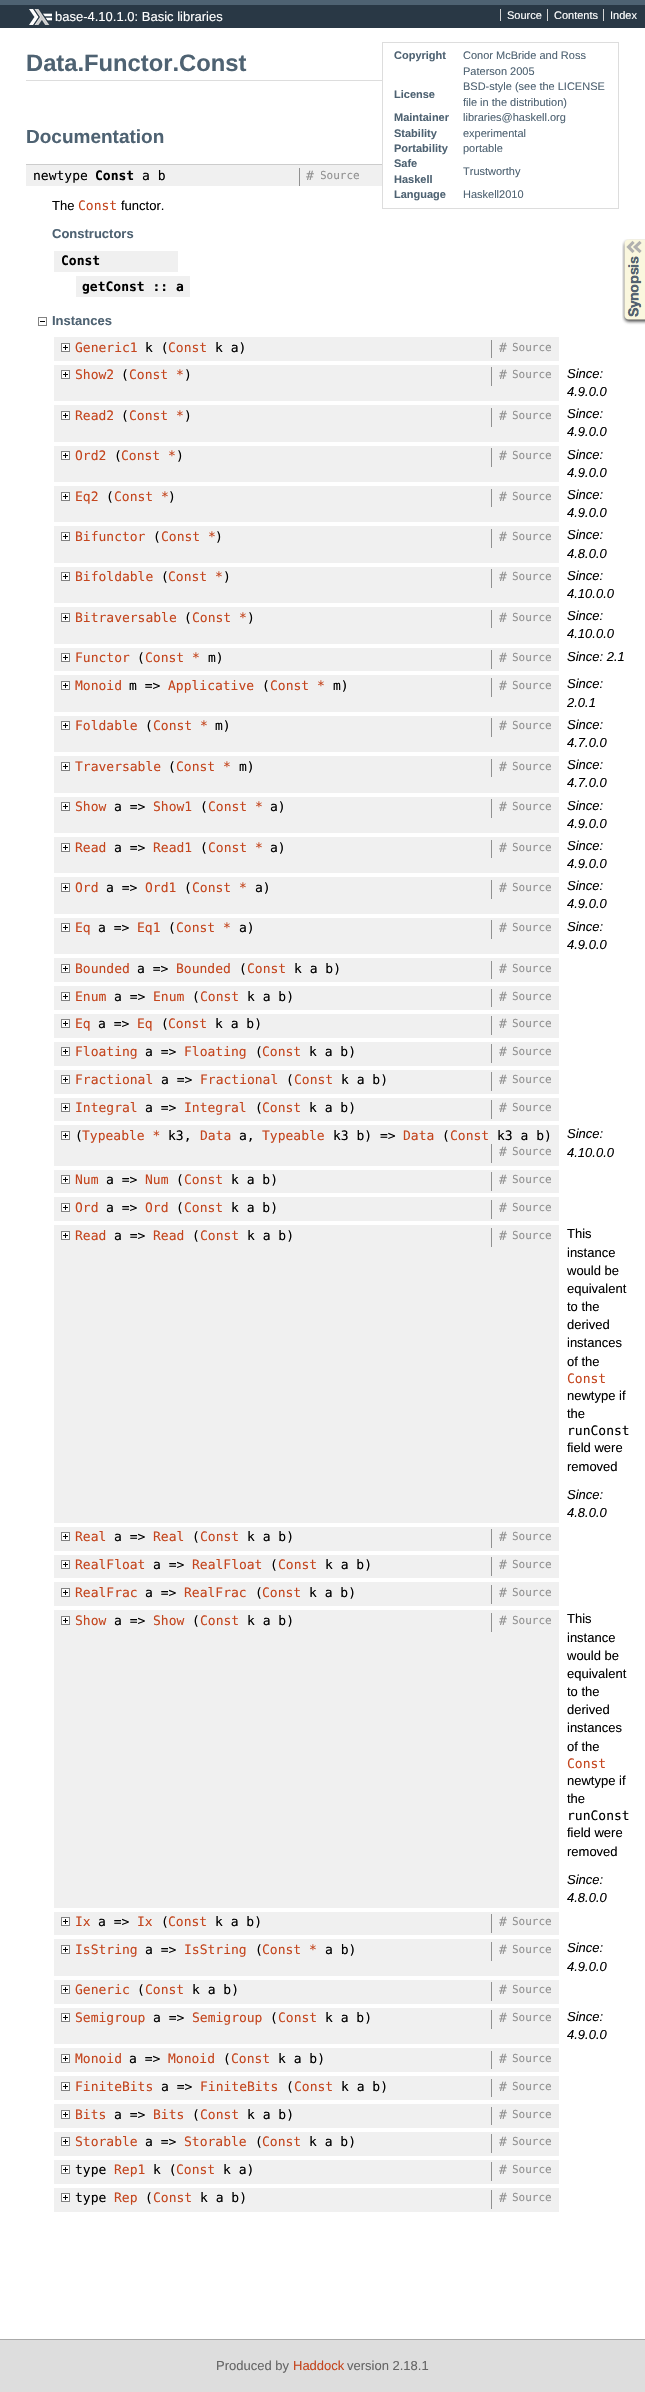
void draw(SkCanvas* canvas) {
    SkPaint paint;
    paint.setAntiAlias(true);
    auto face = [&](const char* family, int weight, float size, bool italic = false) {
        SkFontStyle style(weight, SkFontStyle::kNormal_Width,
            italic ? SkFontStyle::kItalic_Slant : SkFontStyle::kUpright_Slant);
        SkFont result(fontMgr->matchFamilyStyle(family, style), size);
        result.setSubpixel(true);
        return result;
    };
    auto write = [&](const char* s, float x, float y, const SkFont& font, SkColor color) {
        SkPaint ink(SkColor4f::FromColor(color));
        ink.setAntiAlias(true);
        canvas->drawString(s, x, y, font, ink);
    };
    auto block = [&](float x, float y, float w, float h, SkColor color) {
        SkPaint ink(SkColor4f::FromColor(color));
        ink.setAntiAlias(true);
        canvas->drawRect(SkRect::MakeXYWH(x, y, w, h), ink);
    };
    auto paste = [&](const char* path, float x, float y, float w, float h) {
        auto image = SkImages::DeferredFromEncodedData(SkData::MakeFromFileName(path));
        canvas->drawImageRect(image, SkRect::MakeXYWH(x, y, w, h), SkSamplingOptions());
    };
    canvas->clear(SK_ColorWHITE);
    block(0, 5, 645, 23, SkColorSetRGB(41, 56, 69));
    block(0, 0, 645, 5, SkColorSetRGB(78, 98, 114));
    paste("pic1.png", 29, 9, 23, 16);
    auto kFont1 = face("Liberation Sans", 400, 13);
    write("base-4.10.1.0: Basic libraries", 55, 21, kFont1, SK_ColorWHITE);
    auto kFont2 = face("Liberation Sans", 400, 11);
    write("Source", 507, 19, kFont2, SK_ColorWHITE);
    block(500, 9, 1, 12, SkColorSetRGB(213, 213, 213));
    write("Contents", 554, 19, kFont2, SK_ColorWHITE);
    block(547, 9, 1, 12, SkColorSetRGB(213, 213, 213));
    write("Index", 610, 19, kFont2, SK_ColorWHITE);
    block(603, 9, 1, 12, SkColorSetRGB(213, 213, 213));
    block(26, 80, 356, 1, SkColorSetRGB(221, 221, 221));
    auto kFont3 = face("Liberation Sans", 700, 23.75f);
    write("Data.Functor.Const", 26, 71, kFont3, SkColorSetRGB(78, 98, 114));
    paint.setStyle(SkPaint::kStroke_Style);
    paint.setStrokeWidth(1);
    paint.setColor(SkColorSetRGB(221, 221, 221));
    canvas->drawRect(SkRect::MakeXYWH(382.5f, 42.5f, 236, 166), paint);
    auto kFont4 = face("Liberation Sans", 700, 11);
    write("Copyright", 394, 59, kFont4, SkColorSetRGB(78, 98, 114));
    write("Conor McBride and Ross", 463, 59, kFont2, SkColorSetRGB(78, 98, 114));
    write("Paterson 2005", 463, 75, kFont2, SkColorSetRGB(78, 98, 114));
    write("License", 394, 98, kFont4, SkColorSetRGB(78, 98, 114));
    write("BSD-style (see the LICENSE", 463, 90, kFont2, SkColorSetRGB(78, 98, 114));
    write("file in the distribution)", 463, 106, kFont2, SkColorSetRGB(78, 98, 114));
    write("Maintainer", 394, 121, kFont4, SkColorSetRGB(78, 98, 114));
    write("libraries@haskell.org", 463, 121, kFont2, SkColorSetRGB(78, 98, 114));
    write("Stability", 394, 137, kFont4, SkColorSetRGB(78, 98, 114));
    write("experimental", 463, 137, kFont2, SkColorSetRGB(78, 98, 114));
    write("Portability", 394, 152, kFont4, SkColorSetRGB(78, 98, 114));
    write("portable", 463, 152, kFont2, SkColorSetRGB(78, 98, 114));
    write("Safe", 394, 167, kFont4, SkColorSetRGB(78, 98, 114));
    write("Haskell", 394, 183, kFont4, SkColorSetRGB(78, 98, 114));
    write("Trustworthy", 463, 175, kFont2, SkColorSetRGB(78, 98, 114));
    write("Language", 394, 198, kFont4, SkColorSetRGB(78, 98, 114));
    write("Haskell2010", 463, 198, kFont2, SkColorSetRGB(78, 98, 114));
    auto kFont5 = face("Liberation Sans", 700, 19);
    write("Documentation", 26, 143, kFont5, SkColorSetRGB(78, 98, 114));
    block(26, 165, 356, 21, SkColorSetRGB(240, 240, 240));
    block(26, 164, 356, 1, SkColorSetRGB(204, 204, 204));
    auto kFont6 = face("DejaVu Sans Mono", 400, 13);
    write("newtype", 33, 180, kFont6, SK_ColorBLACK);
    auto kFont7 = face("DejaVu Sans Mono", 700, 13);
    write("Const", 95, 180, kFont7, SK_ColorBLACK);
    write("a b", 142, 180, kFont6, SK_ColorBLACK);
    auto kFont8 = face("DejaVu Sans Mono", 400, 11);
    write("Source", 320, 179, kFont8, SkColorSetRGB(145, 145, 145));
    block(320, 172, 1, 7, SkColorSetRGB(240, 240, 240));
    block(299, 168, 1, 18, SkColorSetRGB(145, 145, 145));
    write("#", 306, 180, kFont6, SkColorSetRGB(145, 145, 145));
    write("The", 52, 210, kFont1, SK_ColorBLACK);
    write("Const", 78, 210, kFont6, SkColorSetRGB(196, 69, 29));
    write("functor.", 121, 210, kFont1, SK_ColorBLACK);
    auto kFont9 = face("Liberation Sans", 700, 13);
    write("Constructors", 52, 238, kFont9, SkColorSetRGB(78, 98, 114));
    block(54, 251, 124, 21, SkColorSetRGB(240, 240, 240));
    write("Const", 61, 265, kFont7, SK_ColorBLACK);
    block(76, 276, 114, 21, SkColorSetRGB(240, 240, 240));
    write("getConst :: a", 82, 291, kFont7, SK_ColorBLACK);
    paste("pic2.png", 38, 317, 9, 9);
    write("Instances", 52, 325, kFont9, SkColorSetRGB(78, 98, 114));
    block(54, 337, 505, 24, SkColorSetRGB(240, 240, 240));
    paste("pic3.png", 61, 343, 9, 9);
    write("Generic1", 75, 352, kFont6, SkColorSetRGB(196, 69, 29));
    write("k (", 145, 352, kFont6, SK_ColorBLACK);
    write("Const", 168, 352, kFont6, SkColorSetRGB(196, 69, 29));
    write("k a)", 215, 352, kFont6, SK_ColorBLACK);
    write("Source", 512, 351, kFont8, SkColorSetRGB(145, 145, 145));
    block(512, 344, 1, 2, SkColorSetRGB(240, 240, 240));
    block(491, 340, 1, 18, SkColorSetRGB(145, 145, 145));
    write("#", 499, 352, kFont6, SkColorSetRGB(145, 145, 145));
    block(54, 365, 505, 36, SkColorSetRGB(240, 240, 240));
    paste("pic3.png", 61, 370, 9, 9);
    write("Show2", 75, 379, kFont6, SkColorSetRGB(196, 69, 29));
    write("(", 121, 379, kFont6, SK_ColorBLACK);
    write("Const *", 129, 379, kFont6, SkColorSetRGB(196, 69, 29));
    write(")", 184, 379, kFont6, SK_ColorBLACK);
    write("Source", 512, 378, kFont8, SkColorSetRGB(145, 145, 145));
    block(512, 371, 1, 2, SkColorSetRGB(240, 240, 240));
    block(491, 367, 1, 19, SkColorSetRGB(145, 145, 145));
    write("#", 499, 379, kFont6, SkColorSetRGB(145, 145, 145));
    auto kFont10 = face("Liberation Sans", 400, 13, true);
    write("Since:", 567, 378, kFont10, SK_ColorBLACK);
    write("4.9.0.0", 567, 396, kFont10, SK_ColorBLACK);
    block(54, 405, 505, 37, SkColorSetRGB(240, 240, 240));
    paste("pic3.png", 61, 411, 9, 9);
    write("Read2", 75, 420, kFont6, SkColorSetRGB(196, 69, 29));
    write("(", 121, 420, kFont6, SK_ColorBLACK);
    write("Const *", 129, 420, kFont6, SkColorSetRGB(196, 69, 29));
    write(")", 184, 420, kFont6, SK_ColorBLACK);
    write("Source", 512, 419, kFont8, SkColorSetRGB(145, 145, 145));
    block(512, 412, 1, 2, SkColorSetRGB(240, 240, 240));
    block(491, 408, 1, 19, SkColorSetRGB(145, 145, 145));
    write("#", 499, 420, kFont6, SkColorSetRGB(145, 145, 145));
    write("Since:", 567, 418, kFont10, SK_ColorBLACK);
    write("4.9.0.0", 567, 436, kFont10, SK_ColorBLACK);
    block(54, 446, 505, 36, SkColorSetRGB(240, 240, 240));
    paste("pic3.png", 61, 451, 9, 9);
    write("Ord2", 75, 460, kFont6, SkColorSetRGB(196, 69, 29));
    write("(", 114, 460, kFont6, SK_ColorBLACK);
    write("Const *", 121, 460, kFont6, SkColorSetRGB(196, 69, 29));
    write(")", 176, 460, kFont6, SK_ColorBLACK);
    write("Source", 512, 459, kFont8, SkColorSetRGB(145, 145, 145));
    block(512, 452, 1, 2, SkColorSetRGB(240, 240, 240));
    block(491, 448, 1, 19, SkColorSetRGB(145, 145, 145));
    write("#", 499, 460, kFont6, SkColorSetRGB(145, 145, 145));
    write("Since:", 567, 459, kFont10, SK_ColorBLACK);
    write("4.9.0.0", 567, 477, kFont10, SK_ColorBLACK);
    block(54, 486, 505, 36, SkColorSetRGB(240, 240, 240));
    paste("pic3.png", 61, 492, 9, 9);
    write("Eq2", 75, 501, kFont6, SkColorSetRGB(196, 69, 29));
    write("(", 106, 501, kFont6, SK_ColorBLACK);
    write("Const *", 114, 501, kFont6, SkColorSetRGB(196, 69, 29));
    write(")", 168, 501, kFont6, SK_ColorBLACK);
    write("Source", 512, 500, kFont8, SkColorSetRGB(145, 145, 145));
    block(512, 493, 1, 2, SkColorSetRGB(240, 240, 240));
    block(491, 489, 1, 18, SkColorSetRGB(145, 145, 145));
    write("#", 499, 501, kFont6, SkColorSetRGB(145, 145, 145));
    write("Since:", 567, 499, kFont10, SK_ColorBLACK);
    write("4.9.0.0", 567, 517, kFont10, SK_ColorBLACK);
    block(54, 526, 505, 37, SkColorSetRGB(240, 240, 240));
    paste("pic3.png", 61, 532, 9, 9);
    write("Bifunctor", 75, 541, kFont6, SkColorSetRGB(196, 69, 29));
    write("(", 153, 541, kFont6, SK_ColorBLACK);
    write("Const *", 161, 541, kFont6, SkColorSetRGB(196, 69, 29));
    write(")", 215, 541, kFont6, SK_ColorBLACK);
    write("Source", 512, 540, kFont8, SkColorSetRGB(145, 145, 145));
    block(512, 533, 1, 2, SkColorSetRGB(240, 240, 240));
    block(491, 529, 1, 19, SkColorSetRGB(145, 145, 145));
    write("#", 499, 541, kFont6, SkColorSetRGB(145, 145, 145));
    write("Since:", 567, 539, kFont10, SK_ColorBLACK);
    write("4.8.0.0", 567, 558, kFont10, SK_ColorBLACK);
    block(54, 567, 505, 36, SkColorSetRGB(240, 240, 240));
    paste("pic3.png", 61, 572, 9, 9);
    write("Bifoldable", 75, 581, kFont6, SkColorSetRGB(196, 69, 29));
    write("(", 161, 581, kFont6, SK_ColorBLACK);
    write("Const *", 168, 581, kFont6, SkColorSetRGB(196, 69, 29));
    write(")", 223, 581, kFont6, SK_ColorBLACK);
    write("Source", 512, 580, kFont8, SkColorSetRGB(145, 145, 145));
    block(512, 573, 1, 2, SkColorSetRGB(240, 240, 240));
    block(491, 569, 1, 19, SkColorSetRGB(145, 145, 145));
    write("#", 499, 581, kFont6, SkColorSetRGB(145, 145, 145));
    write("Since:", 567, 580, kFont10, SK_ColorBLACK);
    write("4.10.0.0", 567, 598, kFont10, SK_ColorBLACK);
    block(54, 607, 505, 37, SkColorSetRGB(240, 240, 240));
    paste("pic3.png", 61, 613, 9, 9);
    write("Bitraversable", 75, 622, kFont6, SkColorSetRGB(196, 69, 29));
    write("(", 184, 622, kFont6, SK_ColorBLACK);
    write("Const *", 192, 622, kFont6, SkColorSetRGB(196, 69, 29));
    write(")", 247, 622, kFont6, SK_ColorBLACK);
    write("Source", 512, 621, kFont8, SkColorSetRGB(145, 145, 145));
    block(512, 614, 1, 2, SkColorSetRGB(240, 240, 240));
    block(491, 610, 1, 18, SkColorSetRGB(145, 145, 145));
    write("#", 499, 622, kFont6, SkColorSetRGB(145, 145, 145));
    write("Since:", 567, 620, kFont10, SK_ColorBLACK);
    write("4.10.0.0", 567, 638, kFont10, SK_ColorBLACK);
    block(54, 648, 505, 23, SkColorSetRGB(240, 240, 240));
    paste("pic3.png", 61, 653, 9, 9);
    write("Functor", 75, 662, kFont6, SkColorSetRGB(196, 69, 29));
    write("(", 137, 662, kFont6, SK_ColorBLACK);
    write("Const *", 145, 662, kFont6, SkColorSetRGB(196, 69, 29));
    write("m)", 208, 662, kFont6, SK_ColorBLACK);
    write("Source", 512, 661, kFont8, SkColorSetRGB(145, 145, 145));
    block(512, 654, 1, 2, SkColorSetRGB(240, 240, 240));
    block(491, 650, 1, 19, SkColorSetRGB(145, 145, 145));
    write("#", 499, 662, kFont6, SkColorSetRGB(145, 145, 145));
    write("Since: 2.1", 567, 661, kFont10, SK_ColorBLACK);
    block(54, 675, 505, 37, SkColorSetRGB(240, 240, 240));
    paste("pic3.png", 61, 681, 9, 9);
    write("Monoid", 75, 690, kFont6, SkColorSetRGB(196, 69, 29));
    write("m =>", 129, 690, kFont6, SK_ColorBLACK);
    write("Applicative", 168, 690, kFont6, SkColorSetRGB(196, 69, 29));
    write("(", 262, 690, kFont6, SK_ColorBLACK);
    write("Const *", 270, 690, kFont6, SkColorSetRGB(196, 69, 29));
    write("m)", 333, 690, kFont6, SK_ColorBLACK);
    write("Source", 512, 689, kFont8, SkColorSetRGB(145, 145, 145));
    block(512, 682, 1, 2, SkColorSetRGB(240, 240, 240));
    block(491, 678, 1, 19, SkColorSetRGB(145, 145, 145));
    write("#", 499, 690, kFont6, SkColorSetRGB(145, 145, 145));
    write("Since:", 567, 688, kFont10, SK_ColorBLACK);
    write("2.0.1", 567, 707, kFont10, SK_ColorBLACK);
    block(54, 716, 505, 36, SkColorSetRGB(240, 240, 240));
    paste("pic3.png", 61, 721, 9, 9);
    write("Foldable", 75, 730, kFont6, SkColorSetRGB(196, 69, 29));
    write("(", 145, 730, kFont6, SK_ColorBLACK);
    write("Const *", 153, 730, kFont6, SkColorSetRGB(196, 69, 29));
    write("m)", 215, 730, kFont6, SK_ColorBLACK);
    write("Source", 512, 729, kFont8, SkColorSetRGB(145, 145, 145));
    block(512, 722, 1, 2, SkColorSetRGB(240, 240, 240));
    block(491, 718, 1, 19, SkColorSetRGB(145, 145, 145));
    write("#", 499, 730, kFont6, SkColorSetRGB(145, 145, 145));
    write("Since:", 567, 729, kFont10, SK_ColorBLACK);
    write("4.7.0.0", 567, 747, kFont10, SK_ColorBLACK);
    block(54, 756, 505, 37, SkColorSetRGB(240, 240, 240));
    paste("pic3.png", 61, 762, 9, 9);
    write("Traversable", 75, 771, kFont6, SkColorSetRGB(196, 69, 29));
    write("(", 168, 771, kFont6, SK_ColorBLACK);
    write("Const *", 176, 771, kFont6, SkColorSetRGB(196, 69, 29));
    write("m)", 239, 771, kFont6, SK_ColorBLACK);
    write("Source", 512, 770, kFont8, SkColorSetRGB(145, 145, 145));
    block(512, 763, 1, 2, SkColorSetRGB(240, 240, 240));
    block(491, 759, 1, 18, SkColorSetRGB(145, 145, 145));
    write("#", 499, 771, kFont6, SkColorSetRGB(145, 145, 145));
    write("Since:", 567, 769, kFont10, SK_ColorBLACK);
    write("4.7.0.0", 567, 787, kFont10, SK_ColorBLACK);
    block(54, 797, 505, 36, SkColorSetRGB(240, 240, 240));
    paste("pic3.png", 61, 802, 9, 9);
    write("Show", 75, 811, kFont6, SkColorSetRGB(196, 69, 29));
    write("a =>", 114, 811, kFont6, SK_ColorBLACK);
    write("Show1", 153, 811, kFont6, SkColorSetRGB(196, 69, 29));
    write("(", 200, 811, kFont6, SK_ColorBLACK);
    write("Const *", 208, 811, kFont6, SkColorSetRGB(196, 69, 29));
    write("a)", 270, 811, kFont6, SK_ColorBLACK);
    write("Source", 512, 810, kFont8, SkColorSetRGB(145, 145, 145));
    block(512, 803, 1, 2, SkColorSetRGB(240, 240, 240));
    block(491, 799, 1, 19, SkColorSetRGB(145, 145, 145));
    write("#", 499, 811, kFont6, SkColorSetRGB(145, 145, 145));
    write("Since:", 567, 810, kFont10, SK_ColorBLACK);
    write("4.9.0.0", 567, 828, kFont10, SK_ColorBLACK);
    block(54, 837, 505, 36, SkColorSetRGB(240, 240, 240));
    paste("pic3.png", 61, 843, 9, 9);
    write("Read", 75, 852, kFont6, SkColorSetRGB(196, 69, 29));
    write("a =>", 114, 852, kFont6, SK_ColorBLACK);
    write("Read1", 153, 852, kFont6, SkColorSetRGB(196, 69, 29));
    write("(", 200, 852, kFont6, SK_ColorBLACK);
    write("Const *", 208, 852, kFont6, SkColorSetRGB(196, 69, 29));
    write("a)", 270, 852, kFont6, SK_ColorBLACK);
    write("Source", 512, 851, kFont8, SkColorSetRGB(145, 145, 145));
    block(512, 844, 1, 2, SkColorSetRGB(240, 240, 240));
    block(491, 840, 1, 18, SkColorSetRGB(145, 145, 145));
    write("#", 499, 852, kFont6, SkColorSetRGB(145, 145, 145));
    write("Since:", 567, 850, kFont10, SK_ColorBLACK);
    write("4.9.0.0", 567, 868, kFont10, SK_ColorBLACK);
    block(54, 877, 505, 37, SkColorSetRGB(240, 240, 240));
    paste("pic3.png", 61, 883, 9, 9);
    write("Ord", 75, 892, kFont6, SkColorSetRGB(196, 69, 29));
    write("a =>", 106, 892, kFont6, SK_ColorBLACK);
    write("Ord1", 145, 892, kFont6, SkColorSetRGB(196, 69, 29));
    write("(", 184, 892, kFont6, SK_ColorBLACK);
    write("Const *", 192, 892, kFont6, SkColorSetRGB(196, 69, 29));
    write("a)", 255, 892, kFont6, SK_ColorBLACK);
    write("Source", 512, 891, kFont8, SkColorSetRGB(145, 145, 145));
    block(512, 884, 1, 2, SkColorSetRGB(240, 240, 240));
    block(491, 880, 1, 19, SkColorSetRGB(145, 145, 145));
    write("#", 499, 892, kFont6, SkColorSetRGB(145, 145, 145));
    write("Since:", 567, 890, kFont10, SK_ColorBLACK);
    write("4.9.0.0", 567, 908, kFont10, SK_ColorBLACK);
    block(54, 918, 505, 36, SkColorSetRGB(240, 240, 240));
    paste("pic3.png", 61, 923, 9, 9);
    write("Eq", 75, 932, kFont6, SkColorSetRGB(196, 69, 29));
    write("a =>", 98, 932, kFont6, SK_ColorBLACK);
    write("Eq1", 137, 932, kFont6, SkColorSetRGB(196, 69, 29));
    write("(", 168, 932, kFont6, SK_ColorBLACK);
    write("Const *", 176, 932, kFont6, SkColorSetRGB(196, 69, 29));
    write("a)", 239, 932, kFont6, SK_ColorBLACK);
    write("Source", 512, 931, kFont8, SkColorSetRGB(145, 145, 145));
    block(512, 924, 1, 2, SkColorSetRGB(240, 240, 240));
    block(491, 920, 1, 19, SkColorSetRGB(145, 145, 145));
    write("#", 499, 932, kFont6, SkColorSetRGB(145, 145, 145));
    write("Since:", 567, 931, kFont10, SK_ColorBLACK);
    write("4.9.0.0", 567, 949, kFont10, SK_ColorBLACK);
    block(54, 958, 505, 24, SkColorSetRGB(240, 240, 240));
    paste("pic3.png", 61, 964, 9, 9);
    write("Bounded", 75, 973, kFont6, SkColorSetRGB(196, 69, 29));
    write("a =>", 137, 973, kFont6, SK_ColorBLACK);
    write("Bounded", 176, 973, kFont6, SkColorSetRGB(196, 69, 29));
    write("(", 239, 973, kFont6, SK_ColorBLACK);
    write("Const", 247, 973, kFont6, SkColorSetRGB(196, 69, 29));
    write("k a b)", 294, 973, kFont6, SK_ColorBLACK);
    write("Source", 512, 972, kFont8, SkColorSetRGB(145, 145, 145));
    block(512, 965, 1, 2, SkColorSetRGB(240, 240, 240));
    block(491, 961, 1, 18, SkColorSetRGB(145, 145, 145));
    write("#", 499, 973, kFont6, SkColorSetRGB(145, 145, 145));
    block(54, 986, 505, 24, SkColorSetRGB(240, 240, 240));
    paste("pic3.png", 61, 992, 9, 9);
    write("Enum", 75, 1001, kFont6, SkColorSetRGB(196, 69, 29));
    write("a =>", 114, 1001, kFont6, SK_ColorBLACK);
    write("Enum", 153, 1001, kFont6, SkColorSetRGB(196, 69, 29));
    write("(", 192, 1001, kFont6, SK_ColorBLACK);
    write("Const", 200, 1001, kFont6, SkColorSetRGB(196, 69, 29));
    write("k a b)", 247, 1001, kFont6, SK_ColorBLACK);
    write("Source", 512, 1000, kFont8, SkColorSetRGB(145, 145, 145));
    block(512, 993, 1, 2, SkColorSetRGB(240, 240, 240));
    block(491, 989, 1, 18, SkColorSetRGB(145, 145, 145));
    write("#", 499, 1001, kFont6, SkColorSetRGB(145, 145, 145));
    block(54, 1014, 505, 24, SkColorSetRGB(240, 240, 240));
    paste("pic3.png", 61, 1019, 9, 9);
    write("Eq", 75, 1028, kFont6, SkColorSetRGB(196, 69, 29));
    write("a =>", 98, 1028, kFont6, SK_ColorBLACK);
    write("Eq", 137, 1028, kFont6, SkColorSetRGB(196, 69, 29));
    write("(", 161, 1028, kFont6, SK_ColorBLACK);
    write("Const", 168, 1028, kFont6, SkColorSetRGB(196, 69, 29));
    write("k a b)", 215, 1028, kFont6, SK_ColorBLACK);
    write("Source", 512, 1027, kFont8, SkColorSetRGB(145, 145, 145));
    block(512, 1020, 1, 2, SkColorSetRGB(240, 240, 240));
    block(491, 1016, 1, 19, SkColorSetRGB(145, 145, 145));
    write("#", 499, 1028, kFont6, SkColorSetRGB(145, 145, 145));
    block(54, 1042, 505, 24, SkColorSetRGB(240, 240, 240));
    paste("pic3.png", 61, 1047, 9, 9);
    write("Floating", 75, 1056, kFont6, SkColorSetRGB(196, 69, 29));
    write("a =>", 145, 1056, kFont6, SK_ColorBLACK);
    write("Floating", 184, 1056, kFont6, SkColorSetRGB(196, 69, 29));
    write("(", 255, 1056, kFont6, SK_ColorBLACK);
    write("Const", 262, 1056, kFont6, SkColorSetRGB(196, 69, 29));
    write("k a b)", 309, 1056, kFont6, SK_ColorBLACK);
    write("Source", 512, 1055, kFont8, SkColorSetRGB(145, 145, 145));
    block(512, 1048, 1, 2, SkColorSetRGB(240, 240, 240));
    block(491, 1044, 1, 19, SkColorSetRGB(145, 145, 145));
    write("#", 499, 1056, kFont6, SkColorSetRGB(145, 145, 145));
    block(54, 1070, 505, 24, SkColorSetRGB(240, 240, 240));
    paste("pic3.png", 61, 1075, 9, 9);
    write("Fractional", 75, 1084, kFont6, SkColorSetRGB(196, 69, 29));
    write("a =>", 161, 1084, kFont6, SK_ColorBLACK);
    write("Fractional", 200, 1084, kFont6, SkColorSetRGB(196, 69, 29));
    write("(", 286, 1084, kFont6, SK_ColorBLACK);
    write("Const", 294, 1084, kFont6, SkColorSetRGB(196, 69, 29));
    write("k a b)", 341, 1084, kFont6, SK_ColorBLACK);
    write("Source", 512, 1083, kFont8, SkColorSetRGB(145, 145, 145));
    block(512, 1076, 1, 2, SkColorSetRGB(240, 240, 240));
    block(491, 1072, 1, 19, SkColorSetRGB(145, 145, 145));
    write("#", 499, 1084, kFont6, SkColorSetRGB(145, 145, 145));
    block(54, 1098, 505, 23, SkColorSetRGB(240, 240, 240));
    paste("pic3.png", 61, 1103, 9, 9);
    write("Integral", 75, 1112, kFont6, SkColorSetRGB(196, 69, 29));
    write("a =>", 145, 1112, kFont6, SK_ColorBLACK);
    write("Integral", 184, 1112, kFont6, SkColorSetRGB(196, 69, 29));
    write("(", 255, 1112, kFont6, SK_ColorBLACK);
    write("Const", 262, 1112, kFont6, SkColorSetRGB(196, 69, 29));
    write("k a b)", 309, 1112, kFont6, SK_ColorBLACK);
    write("Source", 512, 1111, kFont8, SkColorSetRGB(145, 145, 145));
    block(512, 1104, 1, 2, SkColorSetRGB(240, 240, 240));
    block(491, 1100, 1, 19, SkColorSetRGB(145, 145, 145));
    write("#", 499, 1112, kFont6, SkColorSetRGB(145, 145, 145));
    block(54, 1125, 505, 41, SkColorSetRGB(240, 240, 240));
    paste("pic3.png", 61, 1131, 9, 9);
    write("(", 75, 1140, kFont6, SK_ColorBLACK);
    write("Typeable *", 82, 1140, kFont6, SkColorSetRGB(196, 69, 29));
    write("k3,", 168, 1140, kFont6, SK_ColorBLACK);
    write("Data", 200, 1140, kFont6, SkColorSetRGB(196, 69, 29));
    write("a,", 239, 1140, kFont6, SK_ColorBLACK);
    write("Typeable", 262, 1140, kFont6, SkColorSetRGB(196, 69, 29));
    write("k3 b) =>", 333, 1140, kFont6, SK_ColorBLACK);
    write("Data", 403, 1140, kFont6, SkColorSetRGB(196, 69, 29));
    write("(", 442, 1140, kFont6, SK_ColorBLACK);
    write("Const", 450, 1140, kFont6, SkColorSetRGB(196, 69, 29));
    write("k3 a b)", 497, 1140, kFont6, SK_ColorBLACK);
    write("Source", 512, 1155, kFont8, SkColorSetRGB(145, 145, 145));
    block(512, 1148, 1, 2, SkColorSetRGB(240, 240, 240));
    block(491, 1144, 1, 19, SkColorSetRGB(145, 145, 145));
    write("#", 499, 1156, kFont6, SkColorSetRGB(145, 145, 145));
    write("Since:", 567, 1138, kFont10, SK_ColorBLACK);
    write("4.10.0.0", 567, 1157, kFont10, SK_ColorBLACK);
    block(54, 1170, 505, 23, SkColorSetRGB(240, 240, 240));
    paste("pic3.png", 61, 1175, 9, 9);
    write("Num", 75, 1184, kFont6, SkColorSetRGB(196, 69, 29));
    write("a =>", 106, 1184, kFont6, SK_ColorBLACK);
    write("Num", 145, 1184, kFont6, SkColorSetRGB(196, 69, 29));
    write("(", 176, 1184, kFont6, SK_ColorBLACK);
    write("Const", 184, 1184, kFont6, SkColorSetRGB(196, 69, 29));
    write("k a b)", 231, 1184, kFont6, SK_ColorBLACK);
    write("Source", 512, 1183, kFont8, SkColorSetRGB(145, 145, 145));
    block(512, 1176, 1, 2, SkColorSetRGB(240, 240, 240));
    block(491, 1172, 1, 19, SkColorSetRGB(145, 145, 145));
    write("#", 499, 1184, kFont6, SkColorSetRGB(145, 145, 145));
    block(54, 1197, 505, 24, SkColorSetRGB(240, 240, 240));
    paste("pic3.png", 61, 1203, 9, 9);
    write("Ord", 75, 1212, kFont6, SkColorSetRGB(196, 69, 29));
    write("a =>", 106, 1212, kFont6, SK_ColorBLACK);
    write("Ord", 145, 1212, kFont6, SkColorSetRGB(196, 69, 29));
    write("(", 176, 1212, kFont6, SK_ColorBLACK);
    write("Const", 184, 1212, kFont6, SkColorSetRGB(196, 69, 29));
    write("k a b)", 231, 1212, kFont6, SK_ColorBLACK);
    write("Source", 512, 1211, kFont8, SkColorSetRGB(145, 145, 145));
    block(512, 1204, 1, 2, SkColorSetRGB(240, 240, 240));
    block(491, 1200, 1, 19, SkColorSetRGB(145, 145, 145));
    write("#", 499, 1212, kFont6, SkColorSetRGB(145, 145, 145));
    block(54, 1225, 505, 298, SkColorSetRGB(240, 240, 240));
    paste("pic3.png", 61, 1231, 9, 9);
    write("Read", 75, 1240, kFont6, SkColorSetRGB(196, 69, 29));
    write("a =>", 114, 1240, kFont6, SK_ColorBLACK);
    write("Read", 153, 1240, kFont6, SkColorSetRGB(196, 69, 29));
    write("(", 192, 1240, kFont6, SK_ColorBLACK);
    write("Const", 200, 1240, kFont6, SkColorSetRGB(196, 69, 29));
    write("k a b)", 247, 1240, kFont6, SK_ColorBLACK);
    write("Source", 512, 1239, kFont8, SkColorSetRGB(145, 145, 145));
    block(512, 1232, 1, 2, SkColorSetRGB(240, 240, 240));
    block(491, 1228, 1, 19, SkColorSetRGB(145, 145, 145));
    write("#", 499, 1240, kFont6, SkColorSetRGB(145, 145, 145));
    write("This", 567, 1238, kFont1, SK_ColorBLACK);
    write("instance", 567, 1257, kFont1, SK_ColorBLACK);
    write("would be", 567, 1275, kFont1, SK_ColorBLACK);
    write("equivalent", 567, 1293, kFont1, SK_ColorBLACK);
    write("to the", 567, 1311, kFont1, SK_ColorBLACK);
    write("derived", 567, 1329, kFont1, SK_ColorBLACK);
    write("instances", 567, 1347, kFont1, SK_ColorBLACK);
    write("of the", 567, 1366, kFont1, SK_ColorBLACK);
    write("Const", 567, 1383, kFont6, SkColorSetRGB(196, 69, 29));
    write("newtype if", 567, 1400, kFont1, SK_ColorBLACK);
    write("the", 567, 1418, kFont1, SK_ColorBLACK);
    write("runConst", 567, 1435, kFont6, SK_ColorBLACK);
    write("field were", 567, 1452, kFont1, SK_ColorBLACK);
    write("removed", 567, 1471, kFont1, SK_ColorBLACK);
    write("Since:", 567, 1499, kFont10, SK_ColorBLACK);
    write("4.8.0.0", 567, 1517, kFont10, SK_ColorBLACK);
    block(54, 1527, 505, 24, SkColorSetRGB(240, 240, 240));
    paste("pic3.png", 61, 1532, 9, 9);
    write("Real", 75, 1541, kFont6, SkColorSetRGB(196, 69, 29));
    write("a =>", 114, 1541, kFont6, SK_ColorBLACK);
    write("Real", 153, 1541, kFont6, SkColorSetRGB(196, 69, 29));
    write("(", 192, 1541, kFont6, SK_ColorBLACK);
    write("Const", 200, 1541, kFont6, SkColorSetRGB(196, 69, 29));
    write("k a b)", 247, 1541, kFont6, SK_ColorBLACK);
    write("Source", 512, 1540, kFont8, SkColorSetRGB(145, 145, 145));
    block(512, 1533, 1, 2, SkColorSetRGB(240, 240, 240));
    block(491, 1529, 1, 19, SkColorSetRGB(145, 145, 145));
    write("#", 499, 1541, kFont6, SkColorSetRGB(145, 145, 145));
    block(54, 1555, 505, 23, SkColorSetRGB(240, 240, 240));
    paste("pic3.png", 61, 1560, 9, 9);
    write("RealFloat", 75, 1569, kFont6, SkColorSetRGB(196, 69, 29));
    write("a =>", 153, 1569, kFont6, SK_ColorBLACK);
    write("RealFloat", 192, 1569, kFont6, SkColorSetRGB(196, 69, 29));
    write("(", 270, 1569, kFont6, SK_ColorBLACK);
    write("Const", 278, 1569, kFont6, SkColorSetRGB(196, 69, 29));
    write("k a b)", 325, 1569, kFont6, SK_ColorBLACK);
    write("Source", 512, 1568, kFont8, SkColorSetRGB(145, 145, 145));
    block(512, 1561, 1, 2, SkColorSetRGB(240, 240, 240));
    block(491, 1557, 1, 19, SkColorSetRGB(145, 145, 145));
    write("#", 499, 1569, kFont6, SkColorSetRGB(145, 145, 145));
    block(54, 1582, 505, 24, SkColorSetRGB(240, 240, 240));
    paste("pic3.png", 61, 1588, 9, 9);
    write("RealFrac", 75, 1597, kFont6, SkColorSetRGB(196, 69, 29));
    write("a =>", 145, 1597, kFont6, SK_ColorBLACK);
    write("RealFrac", 184, 1597, kFont6, SkColorSetRGB(196, 69, 29));
    write("(", 255, 1597, kFont6, SK_ColorBLACK);
    write("Const", 262, 1597, kFont6, SkColorSetRGB(196, 69, 29));
    write("k a b)", 309, 1597, kFont6, SK_ColorBLACK);
    write("Source", 512, 1596, kFont8, SkColorSetRGB(145, 145, 145));
    block(512, 1589, 1, 2, SkColorSetRGB(240, 240, 240));
    block(491, 1585, 1, 19, SkColorSetRGB(145, 145, 145));
    write("#", 499, 1597, kFont6, SkColorSetRGB(145, 145, 145));
    block(54, 1610, 505, 298, SkColorSetRGB(240, 240, 240));
    paste("pic3.png", 61, 1616, 9, 9);
    write("Show", 75, 1625, kFont6, SkColorSetRGB(196, 69, 29));
    write("a =>", 114, 1625, kFont6, SK_ColorBLACK);
    write("Show", 153, 1625, kFont6, SkColorSetRGB(196, 69, 29));
    write("(", 192, 1625, kFont6, SK_ColorBLACK);
    write("Const", 200, 1625, kFont6, SkColorSetRGB(196, 69, 29));
    write("k a b)", 247, 1625, kFont6, SK_ColorBLACK);
    write("Source", 512, 1624, kFont8, SkColorSetRGB(145, 145, 145));
    block(512, 1617, 1, 2, SkColorSetRGB(240, 240, 240));
    block(491, 1613, 1, 19, SkColorSetRGB(145, 145, 145));
    write("#", 499, 1625, kFont6, SkColorSetRGB(145, 145, 145));
    write("This", 567, 1623, kFont1, SK_ColorBLACK);
    write("instance", 567, 1642, kFont1, SK_ColorBLACK);
    write("would be", 567, 1660, kFont1, SK_ColorBLACK);
    write("equivalent", 567, 1678, kFont1, SK_ColorBLACK);
    write("to the", 567, 1696, kFont1, SK_ColorBLACK);
    write("derived", 567, 1714, kFont1, SK_ColorBLACK);
    write("instances", 567, 1732, kFont1, SK_ColorBLACK);
    write("of the", 567, 1751, kFont1, SK_ColorBLACK);
    write("Const", 567, 1768, kFont6, SkColorSetRGB(196, 69, 29));
    write("newtype if", 567, 1785, kFont1, SK_ColorBLACK);
    write("the", 567, 1803, kFont1, SK_ColorBLACK);
    write("runConst", 567, 1820, kFont6, SK_ColorBLACK);
    write("field were", 567, 1837, kFont1, SK_ColorBLACK);
    write("removed", 567, 1856, kFont1, SK_ColorBLACK);
    write("Since:", 567, 1884, kFont10, SK_ColorBLACK);
    write("4.8.0.0", 567, 1902, kFont10, SK_ColorBLACK);
    block(54, 1912, 505, 23, SkColorSetRGB(240, 240, 240));
    paste("pic3.png", 61, 1917, 9, 9);
    write("Ix", 75, 1926, kFont6, SkColorSetRGB(196, 69, 29));
    write("a =>", 98, 1926, kFont6, SK_ColorBLACK);
    write("Ix", 137, 1926, kFont6, SkColorSetRGB(196, 69, 29));
    write("(", 161, 1926, kFont6, SK_ColorBLACK);
    write("Const", 168, 1926, kFont6, SkColorSetRGB(196, 69, 29));
    write("k a b)", 215, 1926, kFont6, SK_ColorBLACK);
    write("Source", 512, 1925, kFont8, SkColorSetRGB(145, 145, 145));
    block(512, 1918, 1, 2, SkColorSetRGB(240, 240, 240));
    block(491, 1914, 1, 19, SkColorSetRGB(145, 145, 145));
    write("#", 499, 1926, kFont6, SkColorSetRGB(145, 145, 145));
    block(54, 1939, 505, 37, SkColorSetRGB(240, 240, 240));
    paste("pic3.png", 61, 1945, 9, 9);
    write("IsString", 75, 1954, kFont6, SkColorSetRGB(196, 69, 29));
    write("a =>", 145, 1954, kFont6, SK_ColorBLACK);
    write("IsString", 184, 1954, kFont6, SkColorSetRGB(196, 69, 29));
    write("(", 255, 1954, kFont6, SK_ColorBLACK);
    write("Const *", 262, 1954, kFont6, SkColorSetRGB(196, 69, 29));
    write("a b)", 325, 1954, kFont6, SK_ColorBLACK);
    write("Source", 512, 1953, kFont8, SkColorSetRGB(145, 145, 145));
    block(512, 1946, 1, 2, SkColorSetRGB(240, 240, 240));
    block(491, 1942, 1, 19, SkColorSetRGB(145, 145, 145));
    write("#", 499, 1954, kFont6, SkColorSetRGB(145, 145, 145));
    write("Since:", 567, 1952, kFont10, SK_ColorBLACK);
    write("4.9.0.0", 567, 1971, kFont10, SK_ColorBLACK);
    block(54, 1980, 505, 24, SkColorSetRGB(240, 240, 240));
    paste("pic3.png", 61, 1985, 9, 9);
    write("Generic", 75, 1994, kFont6, SkColorSetRGB(196, 69, 29));
    write("(", 137, 1994, kFont6, SK_ColorBLACK);
    write("Const", 145, 1994, kFont6, SkColorSetRGB(196, 69, 29));
    write("k a b)", 192, 1994, kFont6, SK_ColorBLACK);
    write("Source", 512, 1993, kFont8, SkColorSetRGB(145, 145, 145));
    block(512, 1986, 1, 2, SkColorSetRGB(240, 240, 240));
    block(491, 1982, 1, 19, SkColorSetRGB(145, 145, 145));
    write("#", 499, 1994, kFont6, SkColorSetRGB(145, 145, 145));
    block(54, 2008, 505, 36, SkColorSetRGB(240, 240, 240));
    paste("pic3.png", 61, 2013, 9, 9);
    write("Semigroup", 75, 2022, kFont6, SkColorSetRGB(196, 69, 29));
    write("a =>", 153, 2022, kFont6, SK_ColorBLACK);
    write("Semigroup", 192, 2022, kFont6, SkColorSetRGB(196, 69, 29));
    write("(", 270, 2022, kFont6, SK_ColorBLACK);
    write("Const", 278, 2022, kFont6, SkColorSetRGB(196, 69, 29));
    write("k a b)", 325, 2022, kFont6, SK_ColorBLACK);
    write("Source", 512, 2021, kFont8, SkColorSetRGB(145, 145, 145));
    block(512, 2014, 1, 2, SkColorSetRGB(240, 240, 240));
    block(491, 2010, 1, 19, SkColorSetRGB(145, 145, 145));
    write("#", 499, 2022, kFont6, SkColorSetRGB(145, 145, 145));
    write("Since:", 567, 2021, kFont10, SK_ColorBLACK);
    write("4.9.0.0", 567, 2039, kFont10, SK_ColorBLACK);
    block(54, 2048, 505, 24, SkColorSetRGB(240, 240, 240));
    paste("pic3.png", 61, 2054, 9, 9);
    write("Monoid", 75, 2063, kFont6, SkColorSetRGB(196, 69, 29));
    write("a =>", 129, 2063, kFont6, SK_ColorBLACK);
    write("Monoid", 168, 2063, kFont6, SkColorSetRGB(196, 69, 29));
    write("(", 223, 2063, kFont6, SK_ColorBLACK);
    write("Const", 231, 2063, kFont6, SkColorSetRGB(196, 69, 29));
    write("k a b)", 278, 2063, kFont6, SK_ColorBLACK);
    write("Source", 512, 2062, kFont8, SkColorSetRGB(145, 145, 145));
    block(512, 2055, 1, 2, SkColorSetRGB(240, 240, 240));
    block(491, 2051, 1, 18, SkColorSetRGB(145, 145, 145));
    write("#", 499, 2063, kFont6, SkColorSetRGB(145, 145, 145));
    block(54, 2076, 505, 24, SkColorSetRGB(240, 240, 240));
    paste("pic3.png", 61, 2082, 9, 9);
    write("FiniteBits", 75, 2091, kFont6, SkColorSetRGB(196, 69, 29));
    write("a =>", 161, 2091, kFont6, SK_ColorBLACK);
    write("FiniteBits", 200, 2091, kFont6, SkColorSetRGB(196, 69, 29));
    write("(", 286, 2091, kFont6, SK_ColorBLACK);
    write("Const", 294, 2091, kFont6, SkColorSetRGB(196, 69, 29));
    write("k a b)", 341, 2091, kFont6, SK_ColorBLACK);
    write("Source", 512, 2090, kFont8, SkColorSetRGB(145, 145, 145));
    block(512, 2083, 1, 2, SkColorSetRGB(240, 240, 240));
    block(491, 2079, 1, 18, SkColorSetRGB(145, 145, 145));
    write("#", 499, 2091, kFont6, SkColorSetRGB(145, 145, 145));
    block(54, 2104, 505, 24, SkColorSetRGB(240, 240, 240));
    paste("pic3.png", 61, 2110, 9, 9);
    write("Bits", 75, 2119, kFont6, SkColorSetRGB(196, 69, 29));
    write("a =>", 114, 2119, kFont6, SK_ColorBLACK);
    write("Bits", 153, 2119, kFont6, SkColorSetRGB(196, 69, 29));
    write("(", 192, 2119, kFont6, SK_ColorBLACK);
    write("Const", 200, 2119, kFont6, SkColorSetRGB(196, 69, 29));
    write("k a b)", 247, 2119, kFont6, SK_ColorBLACK);
    write("Source", 512, 2118, kFont8, SkColorSetRGB(145, 145, 145));
    block(512, 2111, 1, 2, SkColorSetRGB(240, 240, 240));
    block(491, 2107, 1, 18, SkColorSetRGB(145, 145, 145));
    write("#", 499, 2119, kFont6, SkColorSetRGB(145, 145, 145));
    block(54, 2132, 505, 24, SkColorSetRGB(240, 240, 240));
    paste("pic3.png", 61, 2137, 9, 9);
    write("Storable", 75, 2146, kFont6, SkColorSetRGB(196, 69, 29));
    write("a =>", 145, 2146, kFont6, SK_ColorBLACK);
    write("Storable", 184, 2146, kFont6, SkColorSetRGB(196, 69, 29));
    write("(", 255, 2146, kFont6, SK_ColorBLACK);
    write("Const", 262, 2146, kFont6, SkColorSetRGB(196, 69, 29));
    write("k a b)", 309, 2146, kFont6, SK_ColorBLACK);
    write("Source", 512, 2145, kFont8, SkColorSetRGB(145, 145, 145));
    block(512, 2138, 1, 2, SkColorSetRGB(240, 240, 240));
    block(491, 2134, 1, 19, SkColorSetRGB(145, 145, 145));
    write("#", 499, 2146, kFont6, SkColorSetRGB(145, 145, 145));
    block(54, 2160, 505, 24, SkColorSetRGB(240, 240, 240));
    paste("pic3.png", 61, 2165, 9, 9);
    write("type", 75, 2174, kFont6, SK_ColorBLACK);
    write("Rep1", 114, 2174, kFont6, SkColorSetRGB(196, 69, 29));
    write("k (", 153, 2174, kFont6, SK_ColorBLACK);
    write("Const", 176, 2174, kFont6, SkColorSetRGB(196, 69, 29));
    write("k a)", 223, 2174, kFont6, SK_ColorBLACK);
    write("Source", 512, 2173, kFont8, SkColorSetRGB(145, 145, 145));
    block(512, 2166, 1, 2, SkColorSetRGB(240, 240, 240));
    block(491, 2162, 1, 19, SkColorSetRGB(145, 145, 145));
    write("#", 499, 2174, kFont6, SkColorSetRGB(145, 145, 145));
    block(54, 2188, 505, 24, SkColorSetRGB(240, 240, 240));
    paste("pic3.png", 61, 2193, 9, 9);
    write("type", 75, 2202, kFont6, SK_ColorBLACK);
    write("Rep", 114, 2202, kFont6, SkColorSetRGB(196, 69, 29));
    write("(", 145, 2202, kFont6, SK_ColorBLACK);
    write("Const", 153, 2202, kFont6, SkColorSetRGB(196, 69, 29));
    write("k a b)", 200, 2202, kFont6, SK_ColorBLACK);
    write("Source", 512, 2201, kFont8, SkColorSetRGB(145, 145, 145));
    block(512, 2194, 1, 2, SkColorSetRGB(240, 240, 240));
    block(491, 2190, 1, 19, SkColorSetRGB(145, 145, 145));
    write("#", 499, 2202, kFont6, SkColorSetRGB(145, 145, 145));
    paste("pic4.png", 622, 239, 23, 86);
    block(0, 2340, 645, 52, SkColorSetRGB(221, 221, 221));
    block(0, 2339, 645, 1, SkColorSetRGB(170, 170, 170));
    write("Produced by", 216, 2370, kFont1, SkColorSetRGB(102, 102, 102));
    write("Haddock", 293, 2370, kFont1, SkColorSetRGB(196, 69, 29));
    write("version 2.18.1", 347, 2370, kFont1, SkColorSetRGB(102, 102, 102));
}
